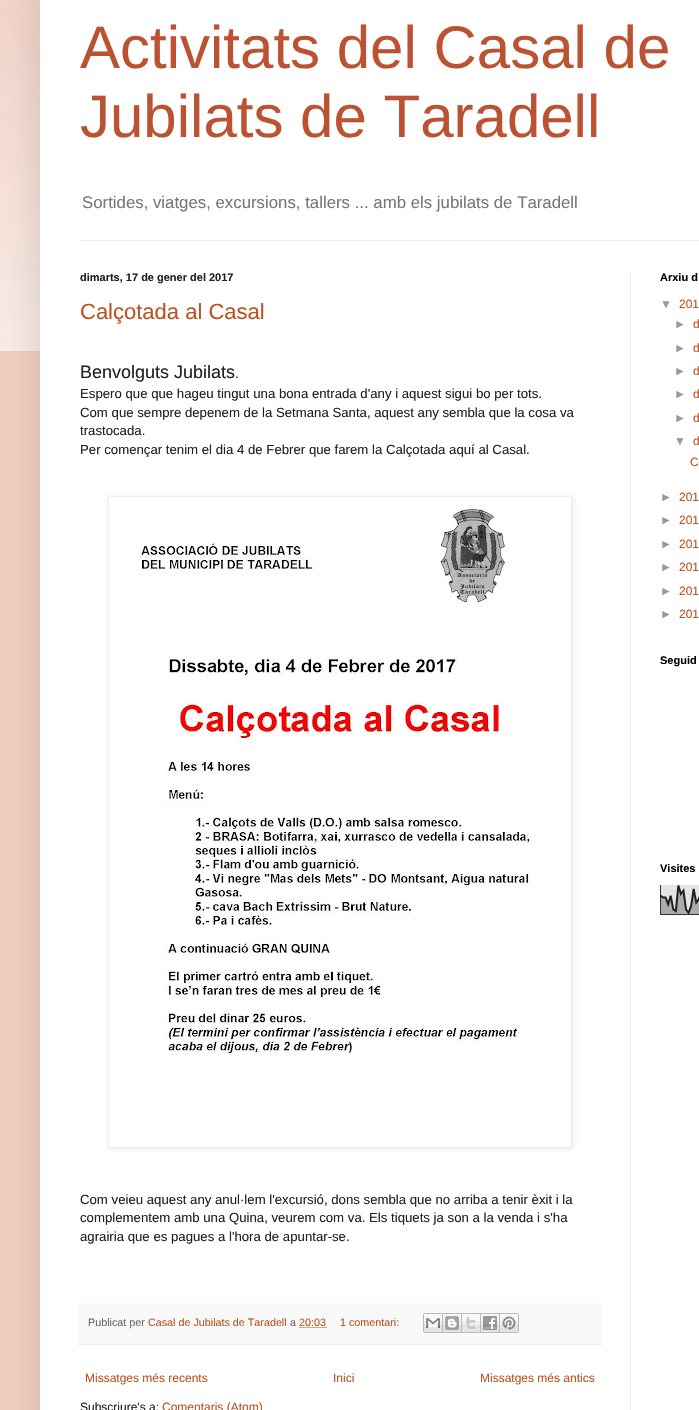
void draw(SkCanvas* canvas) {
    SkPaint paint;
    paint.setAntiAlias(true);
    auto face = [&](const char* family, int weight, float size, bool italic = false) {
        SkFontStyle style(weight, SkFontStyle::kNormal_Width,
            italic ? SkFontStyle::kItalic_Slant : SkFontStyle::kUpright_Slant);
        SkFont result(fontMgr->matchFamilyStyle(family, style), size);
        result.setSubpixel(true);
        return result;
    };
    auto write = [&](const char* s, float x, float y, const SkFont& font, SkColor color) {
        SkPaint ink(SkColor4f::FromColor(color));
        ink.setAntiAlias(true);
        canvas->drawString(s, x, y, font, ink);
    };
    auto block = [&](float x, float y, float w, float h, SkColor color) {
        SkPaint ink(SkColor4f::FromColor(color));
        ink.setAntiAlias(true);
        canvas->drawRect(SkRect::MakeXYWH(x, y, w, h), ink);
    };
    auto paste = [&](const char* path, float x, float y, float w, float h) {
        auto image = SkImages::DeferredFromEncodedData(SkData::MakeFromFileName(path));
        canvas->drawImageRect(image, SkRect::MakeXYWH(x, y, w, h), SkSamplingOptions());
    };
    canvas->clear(SkColorSetRGB(242, 207, 194));
    paste("pic1.png", 0, 0, 40, 351);
    paint.setColor(SkColorSetARGB(38, 0, 0, 0));
    paint.setMaskFilter(SkMaskFilter::MakeBlur(kNormal_SkBlurStyle, 20));
    canvas->drawRect(SkRect::MakeXYWH(40, -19, 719, 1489), paint);
    paint.setMaskFilter(nullptr);
    block(40, 0, 659, 1410, SK_ColorWHITE);
    auto kFont1 = face("Liberation Sans", 400, 60);
    write("Activitats del Casal de", 80, 68, kFont1, SkColorSetRGB(187, 83, 50));
    write("Jubilats de Taradell", 80, 137, kFont1, SkColorSetRGB(187, 83, 50));
    auto kFont2 = face("Liberation Sans", 400, 16.8f);
    write("Sortides, viatges, excursions, tallers ... amb els jubilats de Taradell", 82, 208, kFont2, SkColorSetRGB(119, 119, 119));
    block(80, 240, 619, 1, SkColorSetRGB(238, 238, 238));
    block(630, 271, 1, 1139, SkColorSetRGB(238, 238, 238));
    auto kFont3 = face("Liberation Sans", 700, 11);
    write("dimarts, 17 de gener del 2017", 80, 281, kFont3, SkColorSetRGB(34, 34, 34));
    auto kFont4 = face("Liberation Sans", 400, 22);
    write("Calçotada al Casal", 80, 319, kFont4, SkColorSetRGB(187, 83, 33));
    auto kFont5 = face("Liberation Sans", 400, 18);
    write("Benvolguts Jubilats", 80, 378, kFont5, SkColorSetRGB(34, 34, 34));
    auto kFont6 = face("Liberation Sans", 400, 13.2f);
    write(".", 235, 378, kFont6, SkColorSetRGB(34, 34, 34));
    write("Espero que que hageu tingut una bona entrada d'any i aquest sigui bo per tots.", 80, 398, kFont6, SkColorSetRGB(34, 34, 34));
    write("Com que sempre depenem de la Setmana Santa, aquest any sembla que la cosa va", 80, 417, kFont6, SkColorSetRGB(34, 34, 34));
    write("trastocada.", 80, 435, kFont6, SkColorSetRGB(34, 34, 34));
    write("Per començar tenim el dia 4 de Febrer que farem la Calçotada aquí al Casal.", 80, 454, kFont6, SkColorSetRGB(34, 34, 34));
    canvas->save();
    canvas->clipPath(SkPathBuilder(SkPathFillType::kEvenOdd).moveTo(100, 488).lineTo(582, 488).lineTo(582, 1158).lineTo(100, 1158).close().moveTo(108, 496).lineTo(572, 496).lineTo(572, 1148).lineTo(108, 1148).close().detach(), true);
    paint.setColor(SkColorSetARGB(26, 0, 0, 0));
    paint.setMaskFilter(SkMaskFilter::MakeBlur(kNormal_SkBlurStyle, 2.5f));
    canvas->drawRect(SkRect::MakeXYWH(109, 497, 464, 652), paint);
    paint.setMaskFilter(nullptr);
    canvas->restore();
    paint.setStyle(SkPaint::kStroke_Style);
    paint.setStrokeWidth(1);
    paint.setColor(SkColorSetRGB(238, 238, 238));
    canvas->drawRect(SkRect::MakeXYWH(108.5f, 496.5f, 463, 651), paint);
    paste("pic2.png", 138, 508, 392, 546);
    write("Com veieu aquest any anul·lem l'excursió, dons sembla que no arriba a tenir èxit i la", 80, 1204, kFont6, SkColorSetRGB(34, 34, 34));
    write("complementem amb una Quina, veurem com va. Els tiquets ja son a la venda i s'ha", 80, 1222, kFont6, SkColorSetRGB(34, 34, 34));
    write("agrairia que es pagues a l'hora de apuntar-se.", 80, 1241, kFont6, SkColorSetRGB(34, 34, 34));
    block(78, 1303, 524, 41, SkColorSetRGB(249, 249, 249));
    block(78, 1344, 524, 1, SkColorSetRGB(238, 238, 238));
    auto kFont7 = face("Liberation Sans", 400, 10.75f);
    write("Publicat per", 88, 1326, kFont7, SkColorSetRGB(102, 102, 102));
    write("Casal de Jubilats de Taradell", 148, 1326, kFont7, SkColorSetRGB(187, 83, 33));
    write("a", 290, 1326, kFont7, SkColorSetRGB(102, 102, 102));
    paint.setColor(SkColorSetRGB(187, 83, 33));
    paint.setPathEffect(SkDashPathEffect::Make({{1, 1}}, 0));
    canvas->drawPath(SkPathBuilder().moveTo(299.5f, 1327.5f).lineTo(326.5f, 1327.5f).detach(), paint);
    paint.setPathEffect(nullptr);
    write("20:03", 299, 1326, kFont7, SkColorSetRGB(187, 83, 33));
    write("1 comentari:", 340, 1326, kFont7, SkColorSetRGB(187, 83, 33));
    paste("pic3.png", 423, 1313, 20, 20);
    paste("pic4.png", 443, 1313, 19, 20);
    paste("pic5.png", 462, 1313, 19, 20);
    paste("pic6.png", 481, 1313, 19, 20);
    paste("pic7.png", 500, 1313, 19, 20);
    auto kFont8 = face("Liberation Sans", 400, 12);
    write("Missatges més recents", 85, 1382, kFont8, SkColorSetRGB(187, 83, 33));
    write("Inici", 333, 1382, kFont8, SkColorSetRGB(187, 83, 33));
    write("Missatges més antics", 480, 1382, kFont8, SkColorSetRGB(187, 83, 33));
    write("Subscriure's a:", 80, 1411, kFont8, SkColorSetRGB(34, 34, 34));
    write("Comentaris (Atom)", 162, 1411, kFont8, SkColorSetRGB(187, 83, 33));
    write("Arxiu d", 660, 281, kFont3, SK_ColorBLACK);
    write("▼", 660, 308, kFont8, SkColorSetRGB(153, 153, 153));
    write("201", 679, 308, kFont8, SkColorSetRGB(187, 83, 33));
    write("►", 674, 328, kFont8, SkColorSetRGB(153, 153, 153));
    write("d", 693, 328, kFont8, SkColorSetRGB(187, 83, 33));
    write("►", 674, 352, kFont8, SkColorSetRGB(153, 153, 153));
    write("d", 693, 352, kFont8, SkColorSetRGB(187, 83, 33));
    write("►", 674, 375, kFont8, SkColorSetRGB(153, 153, 153));
    write("d", 693, 375, kFont8, SkColorSetRGB(187, 83, 33));
    write("►", 674, 398, kFont8, SkColorSetRGB(153, 153, 153));
    write("d", 693, 398, kFont8, SkColorSetRGB(187, 83, 33));
    write("►", 674, 422, kFont8, SkColorSetRGB(153, 153, 153));
    write("d", 693, 422, kFont8, SkColorSetRGB(187, 83, 33));
    write("▼", 674, 445, kFont8, SkColorSetRGB(153, 153, 153));
    write("d", 693, 445, kFont8, SkColorSetRGB(187, 83, 33));
    write("C", 690, 466, kFont8, SkColorSetRGB(187, 83, 33));
    write("►", 660, 501, kFont8, SkColorSetRGB(153, 153, 153));
    write("201", 679, 501, kFont8, SkColorSetRGB(187, 83, 33));
    write("►", 660, 524, kFont8, SkColorSetRGB(153, 153, 153));
    write("201", 679, 524, kFont8, SkColorSetRGB(187, 83, 33));
    write("►", 660, 548, kFont8, SkColorSetRGB(153, 153, 153));
    write("201", 679, 548, kFont8, SkColorSetRGB(187, 83, 33));
    write("►", 660, 571, kFont8, SkColorSetRGB(153, 153, 153));
    write("201", 679, 571, kFont8, SkColorSetRGB(187, 83, 33));
    write("►", 660, 595, kFont8, SkColorSetRGB(153, 153, 153));
    write("201", 679, 595, kFont8, SkColorSetRGB(187, 83, 33));
    write("►", 660, 618, kFont8, SkColorSetRGB(153, 153, 153));
    write("201", 679, 618, kFont8, SkColorSetRGB(187, 83, 33));
    write("Seguid", 660, 664, kFont3, SK_ColorBLACK);
    write("Visites", 660, 872, kFont3, SK_ColorBLACK);
    paste("pic8.png", 660, 885, 39, 30);
}
